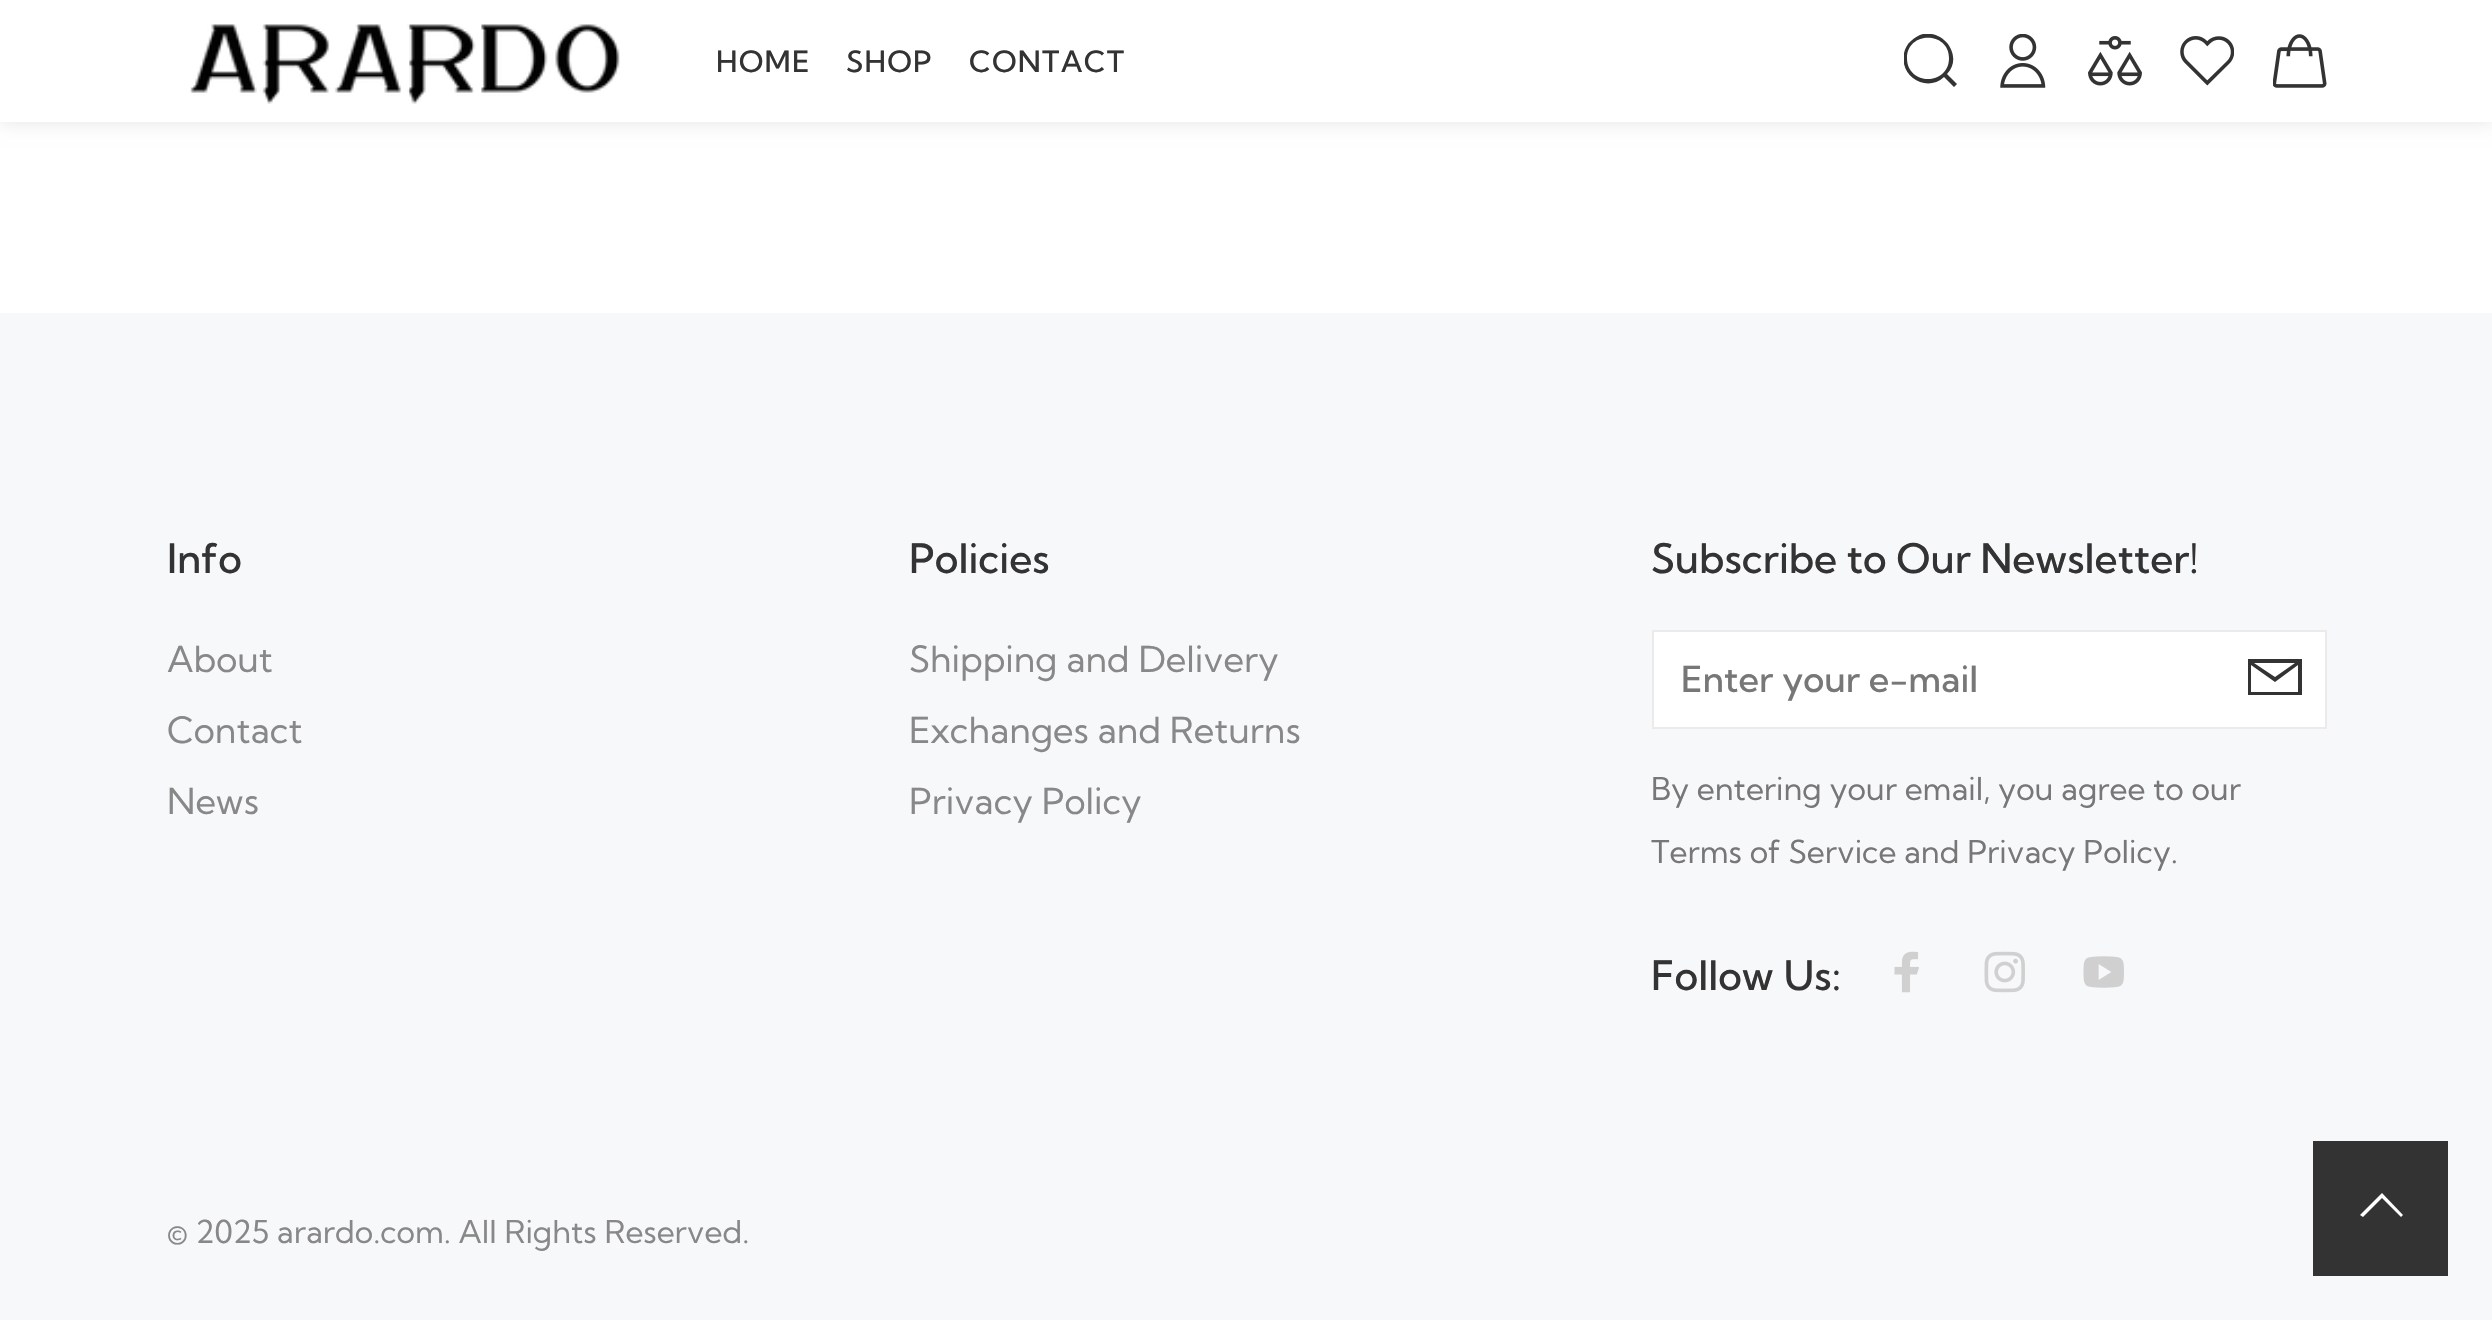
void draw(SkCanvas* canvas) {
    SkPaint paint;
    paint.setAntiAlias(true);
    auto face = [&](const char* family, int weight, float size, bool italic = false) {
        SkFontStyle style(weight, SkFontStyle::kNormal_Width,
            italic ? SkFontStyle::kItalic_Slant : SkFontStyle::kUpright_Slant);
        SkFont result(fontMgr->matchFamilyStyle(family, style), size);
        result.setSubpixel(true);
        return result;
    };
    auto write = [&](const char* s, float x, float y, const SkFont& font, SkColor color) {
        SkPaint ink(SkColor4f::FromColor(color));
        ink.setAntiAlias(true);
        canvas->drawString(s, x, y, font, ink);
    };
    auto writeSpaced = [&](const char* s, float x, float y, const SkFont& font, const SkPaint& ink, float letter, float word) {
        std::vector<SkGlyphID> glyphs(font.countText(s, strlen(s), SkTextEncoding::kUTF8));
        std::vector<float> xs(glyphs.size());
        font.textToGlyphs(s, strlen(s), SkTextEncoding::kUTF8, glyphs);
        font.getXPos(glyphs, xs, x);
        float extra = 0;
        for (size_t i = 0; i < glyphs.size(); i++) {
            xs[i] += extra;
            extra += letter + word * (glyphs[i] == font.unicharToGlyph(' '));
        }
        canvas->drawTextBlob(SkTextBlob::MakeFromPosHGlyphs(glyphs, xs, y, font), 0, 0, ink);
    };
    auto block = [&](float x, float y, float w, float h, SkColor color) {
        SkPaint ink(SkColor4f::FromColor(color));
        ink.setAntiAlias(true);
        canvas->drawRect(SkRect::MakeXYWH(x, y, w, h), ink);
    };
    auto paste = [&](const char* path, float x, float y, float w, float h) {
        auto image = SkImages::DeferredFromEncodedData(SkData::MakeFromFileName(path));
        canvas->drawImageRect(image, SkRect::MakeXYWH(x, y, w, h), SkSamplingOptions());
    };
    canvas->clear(SK_ColorWHITE);
    paint.setColor(SkColorSetARGB(26, 0, 0, 0));
    paint.setMaskFilter(SkMaskFilter::MakeBlur(kNormal_SkBlurStyle, 9));
    canvas->drawRect(SkRect::MakeXYWH(0, 0, 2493, 122), paint);
    paint.setMaskFilter(nullptr);
    block(0, 0, 2492, 122, SK_ColorWHITE);
    paste("pic1.png", 190, 24, 430, 80);
    auto kFont1 = face("Kumbh Sans", 500, 29.25f);
    paint.setColor(SkColorSetRGB(51, 51, 51));
    writeSpaced("HOME", 716, 72, kFont1, paint, 1.25f, 0);
    writeSpaced("SHOP", 846, 72, kFont1, paint, 1.25f, 0);
    writeSpaced("CONTACT", 969, 72, kFont1, paint, 1.25f, 0);
    canvas->save();
    canvas->clipRect(SkRect::MakeXYWH(1904, 34, 54, 54));
    canvas->drawPath(SkPathBuilder().moveTo(1957, 84).lineTo(1947, 74).cubicTo(1963, 58, 1946, 30, 1923, 34).cubicTo(1919, 35, 1914, 38, 1911, 41).cubicTo(1907, 44, 1905, 49, 1904, 53).cubicTo(1899, 77, 1927, 93, 1944, 77).lineTo(1954, 87).close().moveTo(1907, 58).cubicTo(1907, 31, 1949, 31, 1949, 58).cubicTo(1949, 86, 1907, 86, 1907, 58).close().detach(), paint);
    canvas->restore();
    paste("pic2.png", 2000, 34, 46, 54);
    paste("pic3.png", 2088, 36, 54, 50);
    paste("pic4.png", 2180, 36, 54, 50);
    paste("pic5.png", 2273, 34, 54, 54);
    block(0, 313, 2492, 1007, SkColorSetRGB(247, 248, 250));
    auto kFont2 = face("Kumbh Sans", 500, 40.5f);
    write("Info", 167, 573, kFont2, SkColorSetRGB(51, 51, 51));
    auto kFont3 = face("Kumbh Sans", 400, 36);
    write("About", 167, 672, kFont3, SkColorSetRGB(136, 136, 136));
    write("Contact", 167, 743, kFont3, SkColorSetRGB(136, 136, 136));
    write("News", 167, 814, kFont3, SkColorSetRGB(136, 136, 136));
    write("Policies", 909, 573, kFont2, SkColorSetRGB(51, 51, 51));
    write("Shipping and Delivery", 909, 672, kFont3, SkColorSetRGB(136, 136, 136));
    write("Exchanges and Returns", 909, 743, kFont3, SkColorSetRGB(136, 136, 136));
    write("Privacy Policy", 909, 814, kFont3, SkColorSetRGB(136, 136, 136));
    write("Subscribe to Our Newsletter!", 1651, 573, kFont2, SkColorSetRGB(51, 51, 51));
    paint.setColor(SK_ColorWHITE);
    canvas->drawRect(SkRect::MakeXYWH(1653, 631, 673, 97), paint);
    paint.setStyle(SkPaint::kStroke_Style);
    paint.setStrokeWidth(2);
    paint.setColor(SkColorSetRGB(235, 235, 235));
    canvas->drawRect(SkRect::MakeXYWH(1653, 631, 673, 97), paint);
    auto kFont4 = face("Kumbh Sans", 500, 36);
    write("Enter your e-mail", 1681, 692, kFont4, SkColorSetRGB(119, 119, 119));
    paint.setStyle(SkPaint::kFill_Style);
    paint.setColor(SkColorSetRGB(51, 51, 51));
    canvas->drawPath(SkPathBuilder().moveTo(2248, 659).lineTo(2248, 695).lineTo(2302, 695).lineTo(2302, 659).close().moveTo(2295, 663).lineTo(2275, 677).lineTo(2254, 663).close().moveTo(2251, 692).lineTo(2251, 665).lineTo(2275, 682).lineTo(2298, 665).lineTo(2298, 692).close().detach(), paint);
    auto kFont5 = face("Kumbh Sans", 400, 31.5f);
    write("By entering your email, you agree to our", 1651, 800, kFont5, SkColorSetRGB(119, 119, 119));
    write("Terms of Service and Privacy Policy.", 1651, 863, kFont5, SkColorSetRGB(119, 119, 119));
    write("Follow Us:", 1651, 990, kFont2, SkColorSetRGB(51, 51, 51));
    paste("pic6.png", 1894, 951, 25, 42);
    paste("pic7.png", 1984, 951, 41, 42);
    paste("pic8.png", 2083, 956, 41, 32);
    write("© 2025 arardo.com. All Rights Reserved.", 167, 1243, kFont5, SkColorSetRGB(136, 136, 136));
    block(2313, 1141, 135, 135, SkColorSetRGB(51, 51, 51));
    paint.setColor(SK_ColorWHITE);
    canvas->drawPath(SkPathBuilder().moveTo(2401, 1217).lineTo(2382, 1198).lineTo(2363, 1217).lineTo(2360, 1215).lineTo(2382, 1193).lineTo(2403, 1215).close().detach(), paint);
}
